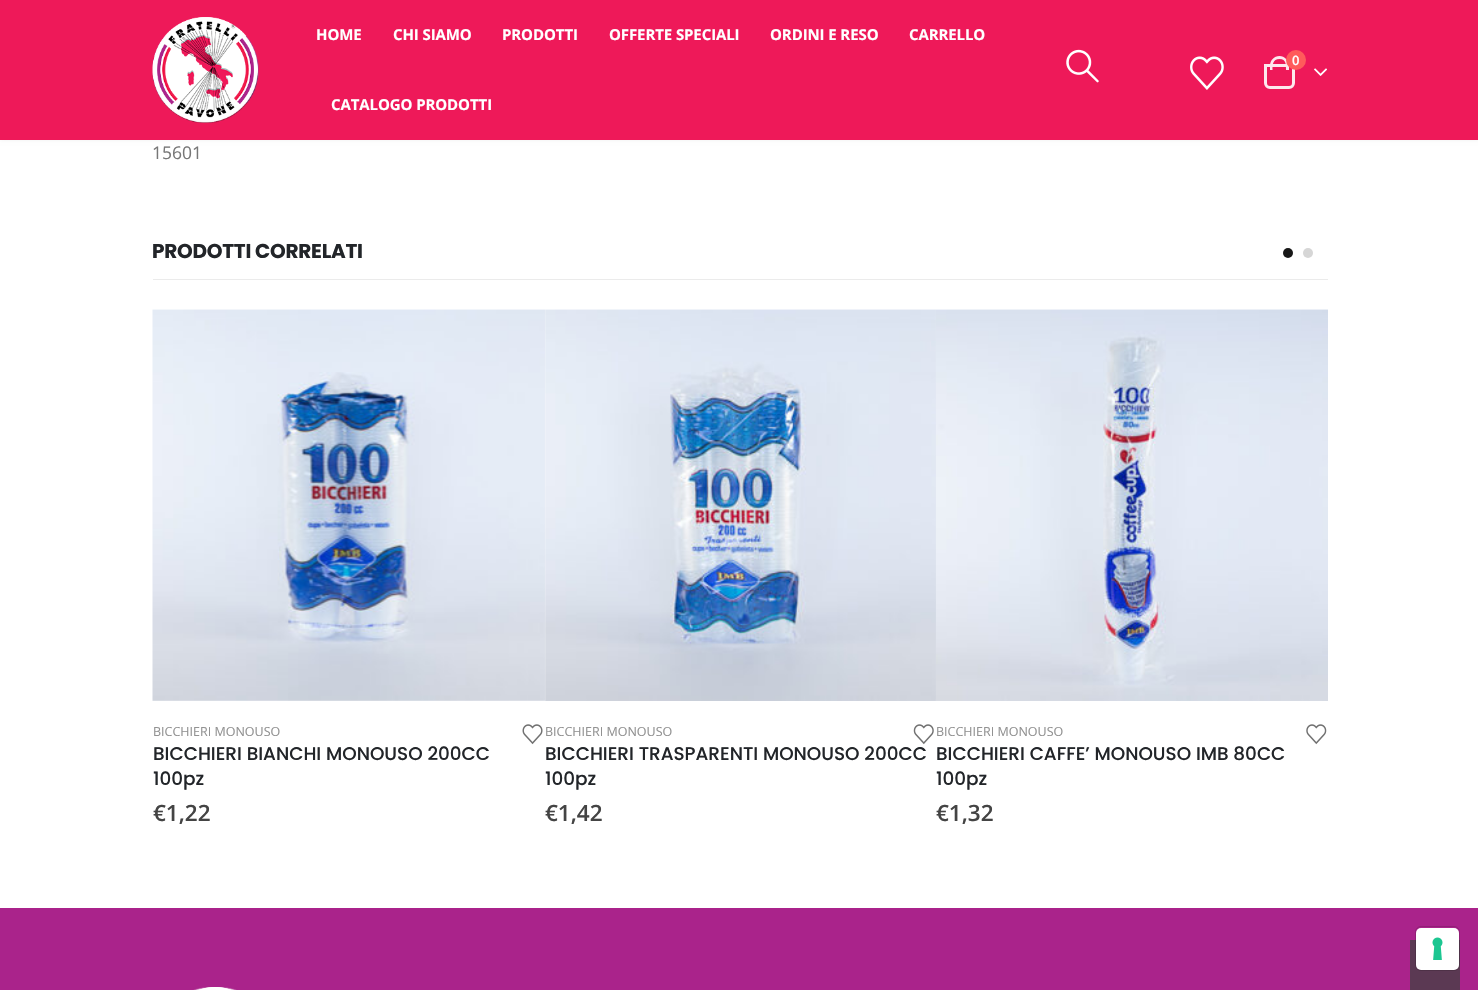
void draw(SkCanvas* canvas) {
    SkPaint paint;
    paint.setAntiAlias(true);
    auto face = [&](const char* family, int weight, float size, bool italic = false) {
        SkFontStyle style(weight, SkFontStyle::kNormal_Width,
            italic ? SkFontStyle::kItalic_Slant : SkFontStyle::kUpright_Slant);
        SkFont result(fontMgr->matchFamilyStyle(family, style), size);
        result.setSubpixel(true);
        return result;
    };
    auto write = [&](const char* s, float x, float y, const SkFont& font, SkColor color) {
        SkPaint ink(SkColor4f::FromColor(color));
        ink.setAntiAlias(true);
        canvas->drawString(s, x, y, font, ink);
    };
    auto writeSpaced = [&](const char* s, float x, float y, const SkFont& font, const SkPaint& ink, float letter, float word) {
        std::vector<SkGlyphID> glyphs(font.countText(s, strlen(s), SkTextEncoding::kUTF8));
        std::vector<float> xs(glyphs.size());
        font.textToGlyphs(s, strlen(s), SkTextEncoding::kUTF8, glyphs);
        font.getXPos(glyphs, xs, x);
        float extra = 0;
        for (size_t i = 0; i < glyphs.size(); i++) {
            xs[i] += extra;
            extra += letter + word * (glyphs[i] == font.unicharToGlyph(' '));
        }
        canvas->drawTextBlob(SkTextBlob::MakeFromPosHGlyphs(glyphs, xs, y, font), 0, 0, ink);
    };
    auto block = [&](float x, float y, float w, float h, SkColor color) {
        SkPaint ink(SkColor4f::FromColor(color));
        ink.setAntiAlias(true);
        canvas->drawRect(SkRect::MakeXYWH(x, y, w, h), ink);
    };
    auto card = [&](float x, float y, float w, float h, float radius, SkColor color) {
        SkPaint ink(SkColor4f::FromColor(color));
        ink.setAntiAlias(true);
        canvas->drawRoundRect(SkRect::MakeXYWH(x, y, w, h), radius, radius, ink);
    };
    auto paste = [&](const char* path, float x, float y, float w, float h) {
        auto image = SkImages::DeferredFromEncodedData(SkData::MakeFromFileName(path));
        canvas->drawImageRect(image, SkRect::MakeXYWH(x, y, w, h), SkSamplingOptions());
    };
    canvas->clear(SK_ColorWHITE);
    paint.setColor(SkColorSetARGB(15, 0, 0, 0));
    paint.setMaskFilter(SkMaskFilter::MakeBlur(kNormal_SkBlurStyle, 2));
    canvas->drawRect(SkRect::MakeXYWH(0, 0, 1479, 140), paint);
    paint.setMaskFilter(nullptr);
    block(0, 0, 1478, 140, SkColorSetRGB(238, 25, 89));
    paste("pic1.png", 152, 17, 107, 106);
    auto kFont1 = face("Open Sans", 700, 15);
    paint.setColor(SK_ColorWHITE);
    writeSpaced("HOME", 316, 40, kFont1, paint, -0.1f, 0);
    writeSpaced("CHI SIAMO", 393, 40, kFont1, paint, -0.1f, 0);
    writeSpaced("PRODOTTI", 502, 40, kFont1, paint, -0.1f, 0);
    writeSpaced("OFFERTE SPECIALI", 609, 40, kFont1, paint, -0.1f, 0);
    writeSpaced("ORDINI E RESO", 770, 40, kFont1, paint, -0.1f, 0);
    writeSpaced("CARRELLO", 909, 40, kFont1, paint, -0.1f, 0);
    writeSpaced("CATALOGO PRODOTTI", 331, 110, kFont1, paint, -0.1f, 0);
    paste("pic2.png", 1066, 49, 33, 34);
    paste("pic3.png", 1190, 56, 34, 34);
    paint.setStyle(SkPaint::kStroke_Style);
    paint.setStrokeWidth(3);
    paint.setColor(SkColorSetRGB(253, 232, 238));
    canvas->drawPath(SkPathBuilder().moveTo(1265.5f, 65.5f).lineTo(1293.5f, 65.5f).lineTo(1293.5f, 83).cubicTo(1293.5f, 85.5f, 1291.5f, 87.5f, 1289, 87.5f).lineTo(1270, 87.5f).cubicTo(1267.5f, 87.5f, 1265.5f, 85.5f, 1265.5f, 83).close().detach(), paint);
    paint.setStyle(SkPaint::kFill_Style);
    canvas->drawPath(SkPathBuilder(SkPathFillType::kEvenOdd).moveTo(1279.5f, 56).cubicTo(1284.5f, 56, 1289, 60.5f, 1289, 65.5f).lineTo(1289, 70).lineTo(1270, 70).lineTo(1270, 65.5f).cubicTo(1270, 60.5f, 1274, 56, 1279.5f, 56).close().moveTo(1279.5f, 59).cubicTo(1286.5f, 59, 1286, 65, 1286, 70).lineTo(1272.5f, 70).cubicTo(1272.5f, 65, 1272.5f, 59, 1279.5f, 59).close().detach(), paint);
    paint.setColor(SkColorSetRGB(255, 91, 91));
    canvas->drawCircle(1296, 60, 10, paint);
    auto kFont2 = face("Open Sans", 600, 13);
    write("0", 1292, 65, kFont2, SK_ColorWHITE);
    paste("pic4.png", 1314, 68, 13, 8);
    auto kFont3 = face("Open Sans", 400, 17.5f);
    write("15601", 152, 159, kFont3, SkColorSetRGB(119, 119, 119));
    block(153, 279, 1175, 1, SkColorSetRGB(235, 235, 235));
    auto kFont4 = face("Poppins", 700, 20);
    paint.setColor(SkColorSetRGB(34, 37, 41));
    writeSpaced("PRODOTTI CORRELATI", 152, 258, kFont4, paint, -0.25f, 0);
    paint.setColor(SkColorSetRGB(23, 23, 23));
    canvas->drawCircle(1288, 253, 5, paint);
    paint.setColor(SkColorSetRGB(214, 214, 214));
    canvas->drawCircle(1308, 253, 5, paint);
    paste("pic5.png", 152, 309, 393, 392);
    auto kFont5 = face("Open Sans", 400, 12.5f);
    write("BICCHIERI MONOUSO", 153, 736, kFont5, SkColorSetRGB(146, 146, 146));
    paste("pic6.png", 522, 724, 21, 21);
    auto kFont6 = face("Poppins", 500, 18.4f);
    write("BICCHIERI BIANCHI MONOUSO 200CC", 153, 760, kFont6, SkColorSetRGB(34, 37, 41));
    write("100pz", 153, 785, kFont6, SkColorSetRGB(34, 37, 41));
    auto kFont7 = face("Open Sans", 600, 22.5f);
    write("€1,22", 153, 821, kFont7, SkColorSetRGB(68, 68, 68));
    paste("pic7.png", 545, 309, 391, 392);
    write("BICCHIERI MONOUSO", 545, 736, kFont5, SkColorSetRGB(146, 146, 146));
    paste("pic8.png", 913, 724, 21, 21);
    write("BICCHIERI TRASPARENTI MONOUSO 200CC", 545, 760, kFont6, SkColorSetRGB(34, 37, 41));
    write("100pz", 545, 785, kFont6, SkColorSetRGB(34, 37, 41));
    write("€1,42", 545, 821, kFont7, SkColorSetRGB(68, 68, 68));
    paste("pic9.png", 936, 309, 392, 392);
    write("BICCHIERI MONOUSO", 936, 736, kFont5, SkColorSetRGB(146, 146, 146));
    paste("pic10.png", 1306, 724, 21, 21);
    write("BICCHIERI CAFFE’ MONOUSO IMB 80CC", 936, 760, kFont6, SkColorSetRGB(34, 37, 41));
    write("100pz", 936, 785, kFont6, SkColorSetRGB(34, 37, 41));
    write("€1,32", 936, 821, kFont7, SkColorSetRGB(68, 68, 68));
    block(0, 908, 1478, 82, SkColorSetRGB(170, 35, 139));
    paste("pic11.png", 193, 987, 44, 3);
    block(1410, 940, 50, 50, SkColorSetRGB(91, 57, 83));
    paint.setStyle(SkPaint::kStroke_Style);
    paint.setStrokeWidth(1);
    paint.setColor(SkColorSetARGB(38, 0, 0, 0));
    canvas->drawRoundRect(SkRect::MakeXYWH(1415.5f, 926.5f, 44, 44), 5.5f, 5.5f, paint);
    card(1416, 928, 43, 42, 5, SK_ColorWHITE);
    paste("pic12.png", 1432, 937, 11, 23);
}
